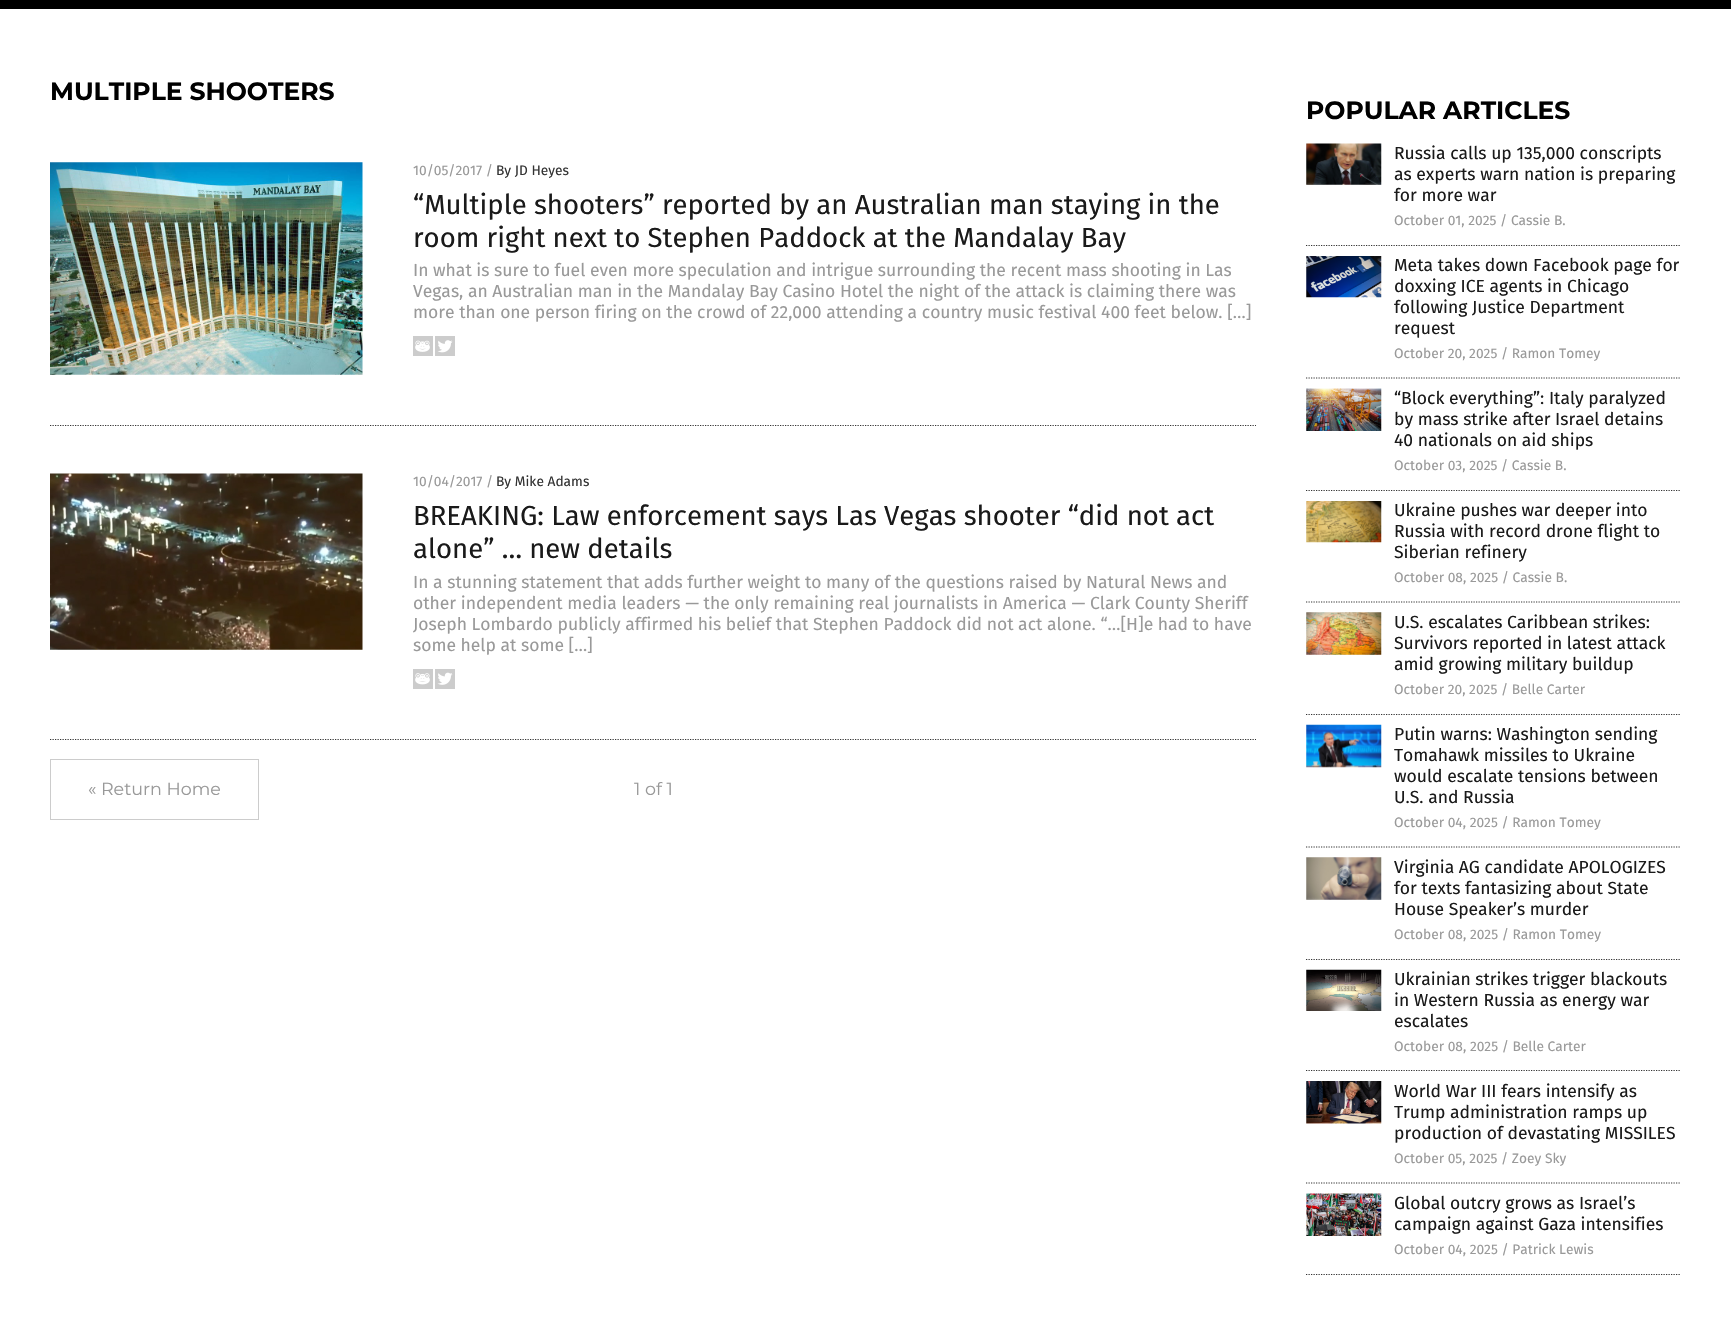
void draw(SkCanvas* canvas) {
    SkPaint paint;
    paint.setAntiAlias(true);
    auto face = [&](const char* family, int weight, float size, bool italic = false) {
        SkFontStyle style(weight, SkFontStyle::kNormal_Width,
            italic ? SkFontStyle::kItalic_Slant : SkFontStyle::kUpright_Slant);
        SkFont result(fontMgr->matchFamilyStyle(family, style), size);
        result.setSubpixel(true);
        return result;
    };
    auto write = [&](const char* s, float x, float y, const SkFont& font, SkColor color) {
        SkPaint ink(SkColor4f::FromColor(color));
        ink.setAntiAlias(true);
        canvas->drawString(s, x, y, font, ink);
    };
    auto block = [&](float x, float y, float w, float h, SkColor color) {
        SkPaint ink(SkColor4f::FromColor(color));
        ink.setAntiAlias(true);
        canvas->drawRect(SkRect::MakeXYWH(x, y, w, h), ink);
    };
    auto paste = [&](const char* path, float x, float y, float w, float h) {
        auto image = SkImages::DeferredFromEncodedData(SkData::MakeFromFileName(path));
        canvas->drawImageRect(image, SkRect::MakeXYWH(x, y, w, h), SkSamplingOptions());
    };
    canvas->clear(SK_ColorBLACK);
    block(0, 9, 1731, 1327, SK_ColorWHITE);
    auto kFont1 = face("Montserrat", 700, 25);
    write("MULTIPLE SHOOTERS", 50, 100, kFont1, SK_ColorBLACK);
    paint.setStyle(SkPaint::kStroke_Style);
    paint.setStrokeWidth(1.2f);
    paint.setColor(SkColorSetRGB(52, 52, 52));
    paint.setPathEffect(SkDashPathEffect::Make({{1.25f, 1.25f}}, 0));
    canvas->drawPath(SkPathBuilder().moveTo(50, 425.5f).lineTo(1256, 425.5f).detach(), paint);
    paint.setPathEffect(nullptr);
    paste("pic1.png", 50, 162, 313, 213);
    auto kFont2 = face("Fira Sans", 400, 13.75f);
    write("10/05/2017 /", 413, 175, kFont2, SkColorSetRGB(153, 153, 153));
    write("By JD Heyes", 496, 175, kFont2, SkColorSetRGB(51, 51, 51));
    auto kFont3 = face("Fira Sans", 400, 27.5f);
    write("“Multiple shooters” reported by an Australian man staying in the", 413, 214, kFont3, SkColorSetRGB(26, 26, 26));
    write("room right next to Stephen Paddock at the Mandalay Bay", 413, 247, kFont3, SkColorSetRGB(26, 26, 26));
    auto kFont4 = face("Fira Sans", 400, 17.5f);
    write("In what is sure to fuel even more speculation and intrigue surrounding the recent mass shooting in Las", 413, 276, kFont4, SkColorSetRGB(153, 153, 153));
    write("Vegas, an Australian man in the Mandalay Bay Casino Hotel the night of the attack is claiming there was", 413, 297, kFont4, SkColorSetRGB(153, 153, 153));
    write("more than one person firing on the crowd of 22,000 attending a country music festival 400 feet below. […]", 413, 318, kFont4, SkColorSetRGB(153, 153, 153));
    paste("pic2.png", 413, 336, 20, 20);
    paste("pic3.png", 435, 336, 20, 20);
    paint.setPathEffect(SkDashPathEffect::Make({{1.25f, 1.25f}}, 0));
    canvas->drawPath(SkPathBuilder().moveTo(50, 739.5f).lineTo(1256, 739.5f).detach(), paint);
    paint.setPathEffect(nullptr);
    paste("pic4.png", 50, 473, 313, 177);
    write("10/04/2017 /", 413, 486, kFont2, SkColorSetRGB(153, 153, 153));
    write("By Mike Adams", 496, 486, kFont2, SkColorSetRGB(51, 51, 51));
    write("BREAKING: Law enforcement says Las Vegas shooter “did not act", 413, 525, kFont3, SkColorSetRGB(26, 26, 26));
    write("alone” … new details", 413, 558, kFont3, SkColorSetRGB(26, 26, 26));
    write("In a stunning statement that adds further weight to many of the questions raised by Natural News and", 413, 588, kFont4, SkColorSetRGB(153, 153, 153));
    write("other independent media leaders — the only remaining real journalists in America — Clark County Sheriff", 413, 609, kFont4, SkColorSetRGB(153, 153, 153));
    write("Joseph Lombardo publicly affirmed his belief that Stephen Paddock did not act alone. “…[H]e had to have", 413, 630, kFont4, SkColorSetRGB(153, 153, 153));
    write("some help at some […]", 413, 651, kFont4, SkColorSetRGB(153, 153, 153));
    paste("pic5.png", 413, 669, 20, 20);
    paste("pic6.png", 435, 669, 20, 20);
    paint.setStrokeWidth(1);
    paint.setColor(SkColorSetRGB(204, 204, 204));
    canvas->drawRect(SkRect::MakeXYWH(50.5f, 759.5f, 208, 60), paint);
    auto kFont5 = face("Montserrat", 400, 17.5f);
    write("« Return Home", 88, 795, kFont5, SkColorSetRGB(153, 153, 153));
    write("1 of 1", 634, 795, kFont5, SkColorSetRGB(153, 153, 153));
    write("POPULAR ARTICLES", 1306, 119, kFont1, SK_ColorBLACK);
    paint.setStrokeWidth(1.2f);
    paint.setColor(SkColorSetRGB(52, 52, 52));
    paint.setPathEffect(SkDashPathEffect::Make({{1.25f, 1.25f}}, 0));
    canvas->drawPath(SkPathBuilder().moveTo(1306, 245.5f).lineTo(1681, 245.5f).detach(), paint);
    paint.setPathEffect(nullptr);
    paste("pic7.png", 1306, 143, 76, 42);
    write("Russia calls up 135,000 conscripts", 1394, 159, kFont4, SkColorSetRGB(26, 26, 26));
    write("as experts warn nation is preparing", 1394, 180, kFont4, SkColorSetRGB(26, 26, 26));
    write("for more war", 1394, 201, kFont4, SkColorSetRGB(26, 26, 26));
    write("October 01, 2025 / Cassie B.", 1394, 225, kFont2, SkColorSetRGB(153, 153, 153));
    paint.setPathEffect(SkDashPathEffect::Make({{1.25f, 1.25f}}, 0));
    canvas->drawPath(SkPathBuilder().moveTo(1306, 378).lineTo(1681, 378).detach(), paint);
    paint.setPathEffect(nullptr);
    paste("pic8.png", 1306, 256, 76, 42);
    write("Meta takes down Facebook page for", 1394, 271, kFont4, SkColorSetRGB(26, 26, 26));
    write("doxxing ICE agents in Chicago", 1394, 292, kFont4, SkColorSetRGB(26, 26, 26));
    write("following Justice Department", 1394, 313, kFont4, SkColorSetRGB(26, 26, 26));
    write("request", 1394, 334, kFont4, SkColorSetRGB(26, 26, 26));
    write("October 20, 2025 / Ramon Tomey", 1394, 358, kFont2, SkColorSetRGB(153, 153, 153));
    paint.setPathEffect(SkDashPathEffect::Make({{1.25f, 1.25f}}, 0));
    canvas->drawPath(SkPathBuilder().moveTo(1306, 490.5f).lineTo(1681, 490.5f).detach(), paint);
    paint.setPathEffect(nullptr);
    paste("pic9.png", 1306, 388, 76, 43);
    write("“Block everything”: Italy paralyzed", 1394, 404, kFont4, SkColorSetRGB(26, 26, 26));
    write("by mass strike after Israel detains", 1394, 425, kFont4, SkColorSetRGB(26, 26, 26));
    write("40 nationals on aid ships", 1394, 446, kFont4, SkColorSetRGB(26, 26, 26));
    write("October 03, 2025 / Cassie B.", 1394, 470, kFont2, SkColorSetRGB(153, 153, 153));
    paint.setPathEffect(SkDashPathEffect::Make({{1.25f, 1.25f}}, 0));
    canvas->drawPath(SkPathBuilder().moveTo(1306, 602).lineTo(1681, 602).detach(), paint);
    paint.setPathEffect(nullptr);
    paste("pic10.png", 1306, 501, 76, 42);
    write("Ukraine pushes war deeper into", 1394, 516, kFont4, SkColorSetRGB(26, 26, 26));
    write("Russia with record drone flight to", 1394, 537, kFont4, SkColorSetRGB(26, 26, 26));
    write("Siberian refinery", 1394, 558, kFont4, SkColorSetRGB(26, 26, 26));
    write("October 08, 2025 / Cassie B.", 1394, 582, kFont2, SkColorSetRGB(153, 153, 153));
    paint.setPathEffect(SkDashPathEffect::Make({{1.25f, 1.25f}}, 0));
    canvas->drawPath(SkPathBuilder().moveTo(1306, 714.5f).lineTo(1681, 714.5f).detach(), paint);
    paint.setPathEffect(nullptr);
    paste("pic11.png", 1306, 612, 76, 43);
    write("U.S. escalates Caribbean strikes:", 1394, 628, kFont4, SkColorSetRGB(26, 26, 26));
    write("Survivors reported in latest attack", 1394, 649, kFont4, SkColorSetRGB(26, 26, 26));
    write("amid growing military buildup", 1394, 670, kFont4, SkColorSetRGB(26, 26, 26));
    write("October 20, 2025 / Belle Carter", 1394, 694, kFont2, SkColorSetRGB(153, 153, 153));
    paint.setPathEffect(SkDashPathEffect::Make({{1.25f, 1.25f}}, 0));
    canvas->drawPath(SkPathBuilder().moveTo(1306, 847).lineTo(1681, 847).detach(), paint);
    paint.setPathEffect(nullptr);
    paste("pic12.png", 1306, 724, 76, 44);
    write("Putin warns: Washington sending", 1394, 740, kFont4, SkColorSetRGB(26, 26, 26));
    write("Tomahawk missiles to Ukraine", 1394, 761, kFont4, SkColorSetRGB(26, 26, 26));
    write("would escalate tensions between", 1394, 782, kFont4, SkColorSetRGB(26, 26, 26));
    write("U.S. and Russia", 1394, 803, kFont4, SkColorSetRGB(26, 26, 26));
    write("October 04, 2025 / Ramon Tomey", 1394, 827, kFont2, SkColorSetRGB(153, 153, 153));
    paint.setPathEffect(SkDashPathEffect::Make({{1.25f, 1.25f}}, 0));
    canvas->drawPath(SkPathBuilder().moveTo(1306, 959.5f).lineTo(1681, 959.5f).detach(), paint);
    paint.setPathEffect(nullptr);
    paste("pic13.png", 1306, 857, 76, 43);
    write("Virginia AG candidate APOLOGIZES", 1394, 873, kFont4, SkColorSetRGB(26, 26, 26));
    write("for texts fantasizing about State", 1394, 894, kFont4, SkColorSetRGB(26, 26, 26));
    write("House Speaker’s murder", 1394, 915, kFont4, SkColorSetRGB(26, 26, 26));
    write("October 08, 2025 / Ramon Tomey", 1394, 939, kFont2, SkColorSetRGB(153, 153, 153));
    paint.setPathEffect(SkDashPathEffect::Make({{1.25f, 1.25f}}, 0));
    canvas->drawPath(SkPathBuilder().moveTo(1306, 1070.5f).lineTo(1681, 1070.5f).detach(), paint);
    paint.setPathEffect(nullptr);
    paste("pic14.png", 1306, 969, 76, 42);
    write("Ukrainian strikes trigger blackouts", 1394, 985, kFont4, SkColorSetRGB(26, 26, 26));
    write("in Western Russia as energy war", 1394, 1006, kFont4, SkColorSetRGB(26, 26, 26));
    write("escalates", 1394, 1027, kFont4, SkColorSetRGB(26, 26, 26));
    write("October 08, 2025 / Belle Carter", 1394, 1051, kFont2, SkColorSetRGB(153, 153, 153));
    paint.setPathEffect(SkDashPathEffect::Make({{1.25f, 1.25f}}, 0));
    canvas->drawPath(SkPathBuilder().moveTo(1306, 1183).lineTo(1681, 1183).detach(), paint);
    paint.setPathEffect(nullptr);
    paste("pic15.png", 1306, 1081, 76, 43);
    write("World War III fears intensify as", 1394, 1097, kFont4, SkColorSetRGB(26, 26, 26));
    write("Trump administration ramps up", 1394, 1118, kFont4, SkColorSetRGB(26, 26, 26));
    write("production of devastating MISSILES", 1394, 1139, kFont4, SkColorSetRGB(26, 26, 26));
    write("October 05, 2025 / Zoey Sky", 1394, 1163, kFont2, SkColorSetRGB(153, 153, 153));
    paint.setPathEffect(SkDashPathEffect::Make({{1.25f, 1.25f}}, 0));
    canvas->drawPath(SkPathBuilder().moveTo(1306, 1274.5f).lineTo(1681, 1274.5f).detach(), paint);
    paint.setPathEffect(nullptr);
    paste("pic16.png", 1306, 1193, 76, 43);
    write("Global outcry grows as Israel’s", 1394, 1209, kFont4, SkColorSetRGB(26, 26, 26));
    write("campaign against Gaza intensifies", 1394, 1230, kFont4, SkColorSetRGB(26, 26, 26));
    write("October 04, 2025 / Patrick Lewis", 1394, 1254, kFont2, SkColorSetRGB(153, 153, 153));
}
